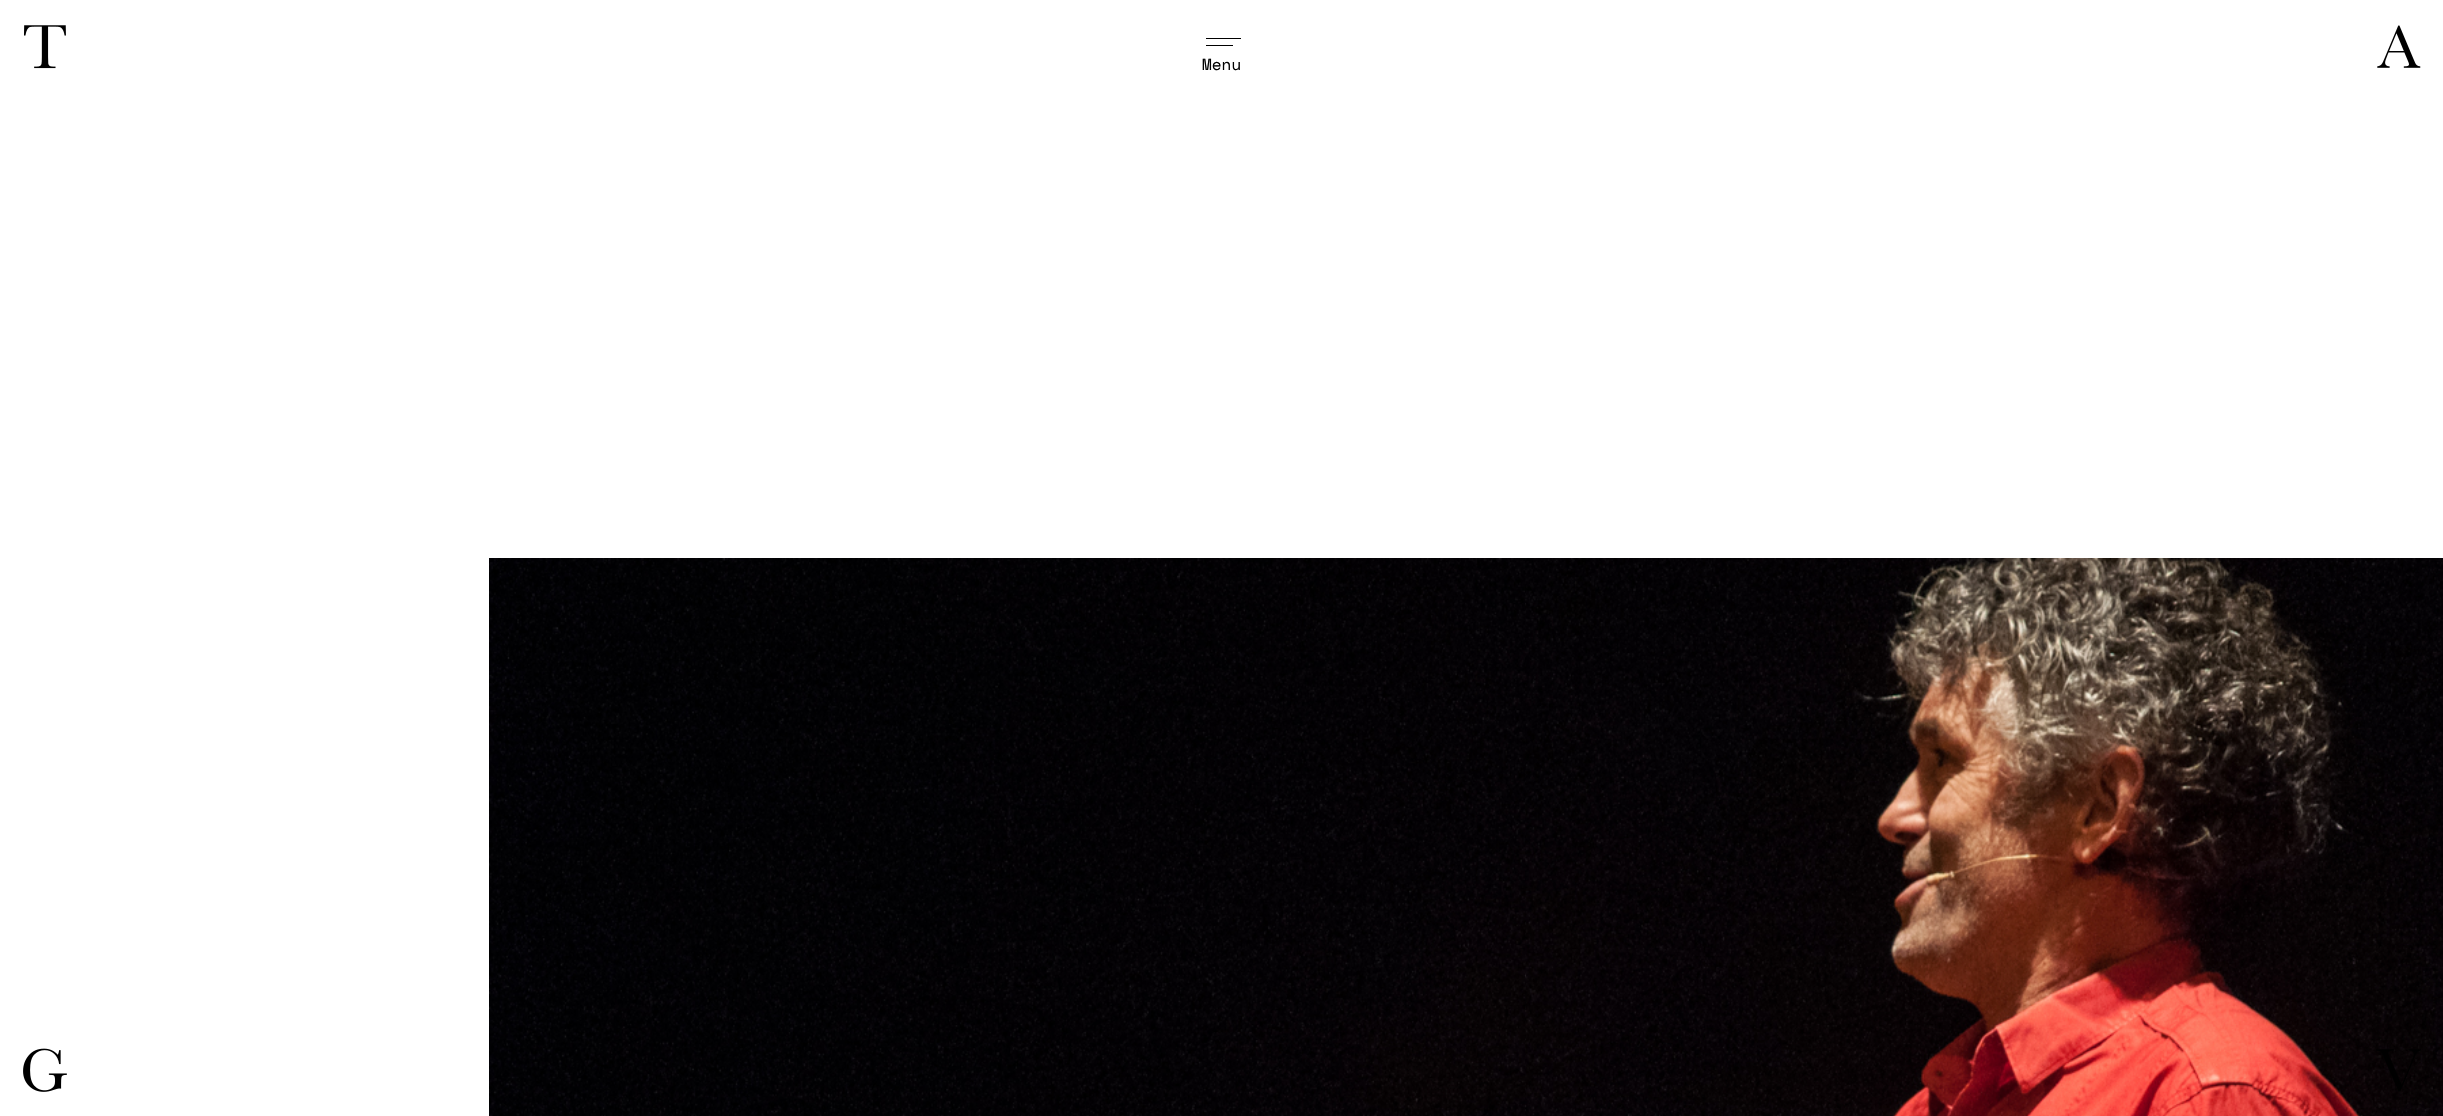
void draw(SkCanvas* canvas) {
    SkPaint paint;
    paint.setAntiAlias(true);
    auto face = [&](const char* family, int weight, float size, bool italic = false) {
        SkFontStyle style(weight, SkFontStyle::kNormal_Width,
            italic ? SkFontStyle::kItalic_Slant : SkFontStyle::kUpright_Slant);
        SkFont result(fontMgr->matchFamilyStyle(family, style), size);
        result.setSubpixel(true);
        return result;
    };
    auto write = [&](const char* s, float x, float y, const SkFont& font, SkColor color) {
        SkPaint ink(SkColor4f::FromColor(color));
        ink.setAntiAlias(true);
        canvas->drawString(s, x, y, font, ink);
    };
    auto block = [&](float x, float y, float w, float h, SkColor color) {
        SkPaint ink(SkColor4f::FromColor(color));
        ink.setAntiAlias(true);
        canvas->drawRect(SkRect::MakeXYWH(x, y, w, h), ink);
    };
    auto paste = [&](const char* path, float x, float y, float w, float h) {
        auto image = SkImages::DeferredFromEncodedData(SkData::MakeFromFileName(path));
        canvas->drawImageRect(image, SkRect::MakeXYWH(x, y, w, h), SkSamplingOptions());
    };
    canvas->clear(SK_ColorWHITE);
    paste("pic1.png", 24, 25, 42, 44);
    paste("pic2.png", 2377, 25, 44, 43);
    paste("pic3.png", 23, 1048, 44, 44);
    paste("pic5.png", 489, 558, 1954, 558);
    paste("pic4.png", 2376, 1049, 45, 43);
    block(1206, 38, 35, 1, SK_ColorBLACK);
    block(1206, 45, 27, 1, SK_ColorBLACK);
    auto kFont1 = face("Space Mono", 400, 16);
    write("Menu", 1202, 70, kFont1, SK_ColorBLACK);
}
